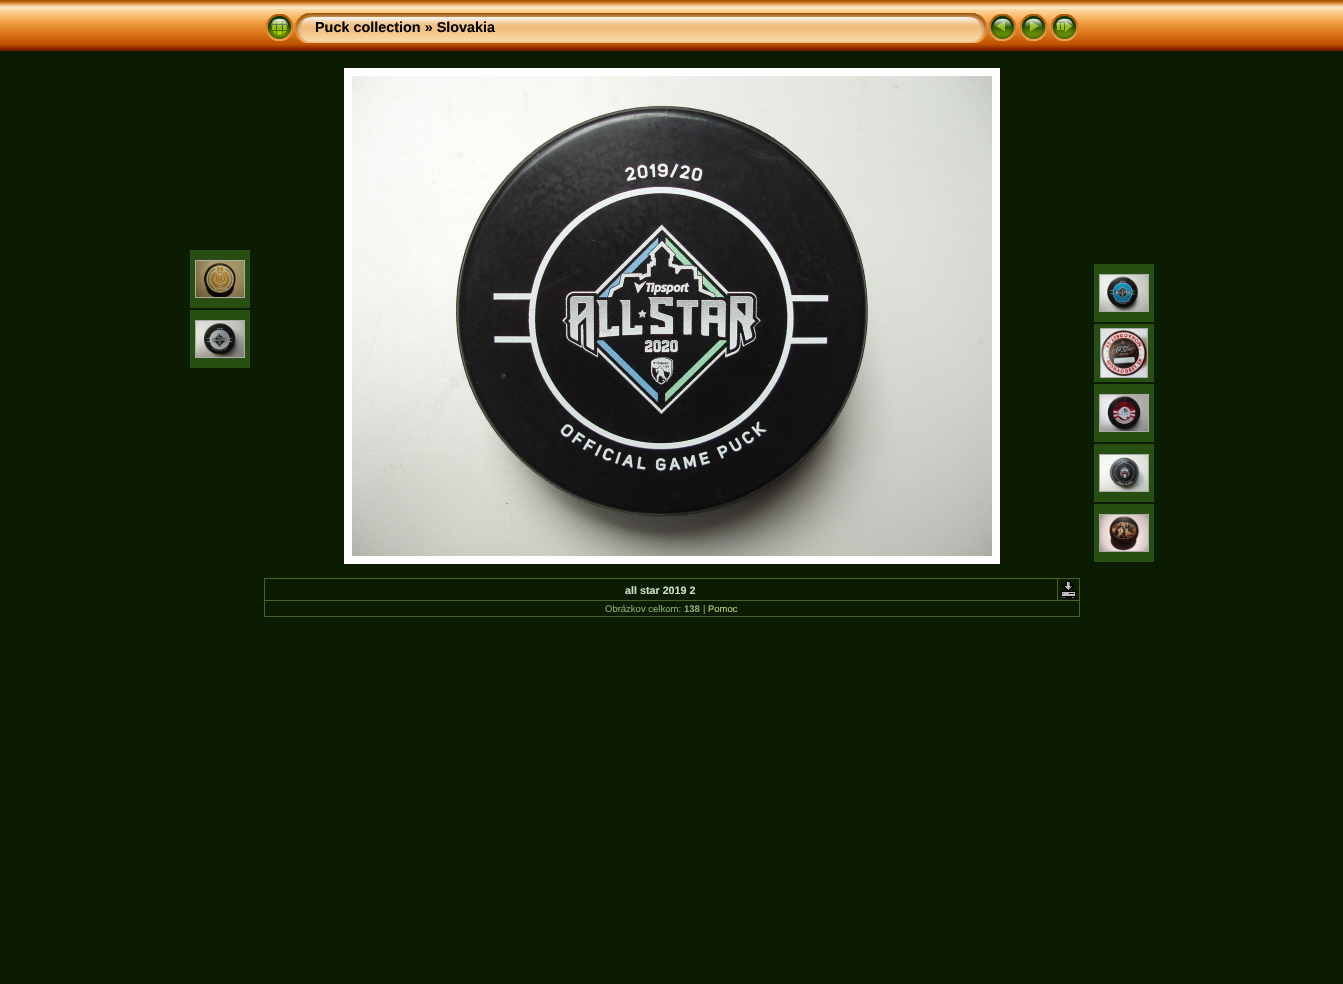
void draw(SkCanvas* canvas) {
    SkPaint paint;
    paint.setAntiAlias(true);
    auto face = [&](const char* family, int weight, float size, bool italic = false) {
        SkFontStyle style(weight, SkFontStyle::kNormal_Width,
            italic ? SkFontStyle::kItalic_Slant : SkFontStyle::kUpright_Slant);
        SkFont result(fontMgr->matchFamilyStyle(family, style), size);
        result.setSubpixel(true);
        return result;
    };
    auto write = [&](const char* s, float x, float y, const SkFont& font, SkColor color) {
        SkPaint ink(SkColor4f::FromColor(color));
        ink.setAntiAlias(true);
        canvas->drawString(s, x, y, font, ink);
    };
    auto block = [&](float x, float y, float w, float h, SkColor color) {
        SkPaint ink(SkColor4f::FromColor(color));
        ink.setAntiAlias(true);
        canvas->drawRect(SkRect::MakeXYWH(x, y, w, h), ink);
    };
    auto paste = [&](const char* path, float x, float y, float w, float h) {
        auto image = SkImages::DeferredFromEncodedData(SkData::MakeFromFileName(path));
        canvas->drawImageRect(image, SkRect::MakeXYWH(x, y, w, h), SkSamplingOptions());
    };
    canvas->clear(SkColorSetRGB(11, 28, 2));
    paste("pic1.png", 0, 0, 1343, 51);
    paste("pic2.png", 266, 14, 27, 27);
    paste("pic3.png", 295, 13, 20, 30);
    paste("pic4.png", 315, 13, 652, 30);
    auto kFont1 = face("Liberation Sans", 700, 14.4f);
    write("Puck collection » Slovakia", 315, 32, kFont1, SK_ColorBLACK);
    paste("pic5.png", 967, 13, 20, 30);
    paste("pic6.png", 989, 14, 27, 27);
    paste("pic7.png", 1020, 14, 27, 27);
    paste("pic8.png", 1051, 14, 27, 27);
    block(190, 250, 60, 58, SkColorSetRGB(39, 79, 17));
    paint.setStyle(SkPaint::kStroke_Style);
    paint.setStrokeWidth(1);
    paint.setColor(SkColorSetRGB(170, 170, 170));
    canvas->drawRect(SkRect::MakeXYWH(195.5f, 260.5f, 49, 37), paint);
    paste("pic9.png", 196, 261, 48, 36);
    block(190, 310, 60, 58, SkColorSetRGB(39, 79, 17));
    canvas->drawRect(SkRect::MakeXYWH(195.5f, 320.5f, 49, 37), paint);
    paste("pic10.png", 196, 321, 48, 36);
    paint.setStrokeWidth(8);
    paint.setColor(SK_ColorWHITE);
    canvas->drawRect(SkRect::MakeXYWH(348, 72, 648, 488), paint);
    paste("pic11.png", 352, 76, 640, 480);
    block(1094, 264, 60, 58, SkColorSetRGB(39, 79, 17));
    paint.setStrokeWidth(1);
    paint.setColor(SkColorSetRGB(170, 170, 170));
    canvas->drawRect(SkRect::MakeXYWH(1099.5f, 274.5f, 49, 37), paint);
    paste("pic12.png", 1100, 275, 48, 36);
    block(1094, 324, 60, 58, SkColorSetRGB(39, 79, 17));
    canvas->drawRect(SkRect::MakeXYWH(1100.5f, 328.5f, 47, 49), paint);
    paste("pic13.png", 1101, 329, 46, 48);
    block(1094, 384, 60, 58, SkColorSetRGB(39, 79, 17));
    canvas->drawRect(SkRect::MakeXYWH(1099.5f, 394.5f, 49, 37), paint);
    paste("pic14.png", 1100, 395, 48, 36);
    block(1094, 444, 60, 58, SkColorSetRGB(39, 79, 17));
    canvas->drawRect(SkRect::MakeXYWH(1099.5f, 454.5f, 49, 37), paint);
    paste("pic15.png", 1100, 455, 48, 36);
    block(1094, 504, 60, 58, SkColorSetRGB(39, 79, 17));
    canvas->drawRect(SkRect::MakeXYWH(1099.5f, 514.5f, 49, 37), paint);
    paste("pic16.png", 1100, 515, 48, 36);
    block(264, 578, 816, 1, SkColorSetRGB(68, 102, 34));
    block(1079, 578, 1, 39, SkColorSetRGB(68, 102, 34));
    block(264, 616, 816, 1, SkColorSetRGB(68, 102, 34));
    block(264, 578, 1, 39, SkColorSetRGB(68, 102, 34));
    auto kFont2 = face("Liberation Sans", 700, 10.75f);
    write("all star 2019 2", 625, 594, kFont2, SkColorSetRGB(204, 221, 204));
    block(264, 600, 816, 1, SkColorSetRGB(68, 102, 34));
    block(1057, 578, 1, 23, SkColorSetRGB(68, 102, 34));
    paste("pic17.png", 1061, 581, 15, 17);
    auto kFont3 = face("Liberation Sans", 400, 9.5f);
    write("Obrázkov celkom:", 605, 612, kFont3, SkColorSetRGB(136, 170, 119));
    auto kFont4 = face("Liberation Sans", 700, 9.5f);
    write("138", 684, 612, kFont4, SkColorSetRGB(136, 170, 119));
    write("|", 703, 612, kFont3, SkColorSetRGB(136, 170, 119));
    write("Pomoc", 708, 612, kFont3, SkColorSetRGB(187, 204, 119));
}
